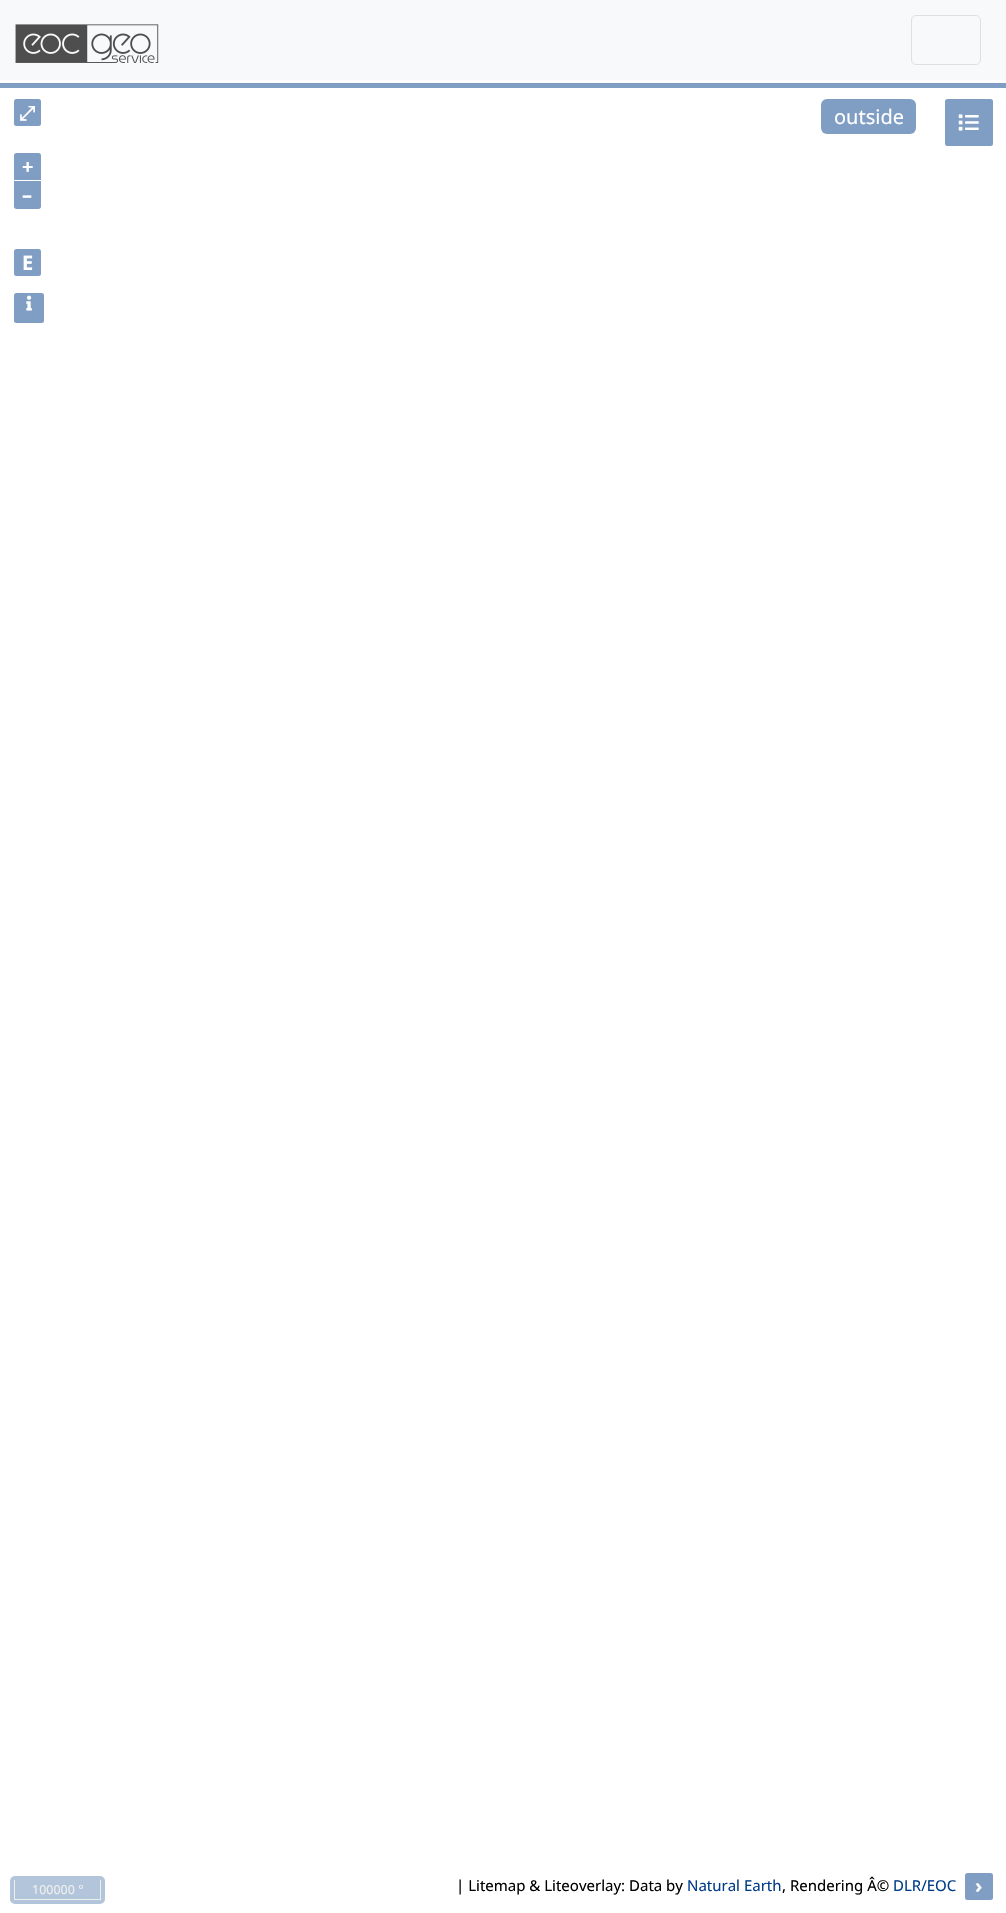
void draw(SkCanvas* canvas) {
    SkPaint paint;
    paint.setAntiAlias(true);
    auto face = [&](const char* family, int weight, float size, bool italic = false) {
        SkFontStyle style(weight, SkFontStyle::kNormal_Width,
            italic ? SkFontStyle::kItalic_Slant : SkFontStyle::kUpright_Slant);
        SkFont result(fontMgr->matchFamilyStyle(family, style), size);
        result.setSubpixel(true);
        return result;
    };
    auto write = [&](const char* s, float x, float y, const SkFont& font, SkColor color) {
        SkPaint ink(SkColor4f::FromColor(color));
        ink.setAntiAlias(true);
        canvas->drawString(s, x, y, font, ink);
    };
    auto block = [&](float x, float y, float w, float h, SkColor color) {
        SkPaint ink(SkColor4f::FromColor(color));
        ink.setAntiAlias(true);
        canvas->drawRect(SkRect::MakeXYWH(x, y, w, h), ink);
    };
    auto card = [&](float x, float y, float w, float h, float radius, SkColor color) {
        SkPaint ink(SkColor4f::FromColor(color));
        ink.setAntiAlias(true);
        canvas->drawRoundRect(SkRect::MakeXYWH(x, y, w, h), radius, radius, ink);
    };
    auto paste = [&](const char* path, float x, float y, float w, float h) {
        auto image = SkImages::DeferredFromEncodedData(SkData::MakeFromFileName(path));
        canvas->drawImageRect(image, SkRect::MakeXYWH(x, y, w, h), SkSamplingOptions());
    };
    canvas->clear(SK_ColorWHITE);
    block(0, 0, 1006, 80, SkColorSetRGB(248, 249, 250));
    paste("pic1.png", 15, 24, 144, 39);
    paint.setStyle(SkPaint::kStroke_Style);
    paint.setStrokeWidth(1);
    paint.setColor(SkColorSetRGB(223, 224, 225));
    canvas->drawRoundRect(SkRect::MakeXYWH(911.5f, 15.5f, 69, 49), 4.5f, 4.5f, paint);
    block(0, 83, 1006, 5, SkColorSetRGB(128, 158, 196));
    card(14, 99, 27, 27, 2.5f, SkColorSetRGB(128, 158, 196));
    auto kFont1 = face("FreeSerif", 700, 20);
    write("⤢", 19, 120, kFont1, SK_ColorWHITE);
    card(821, 99, 95, 35, 6, SkColorSetRGB(128, 158, 196));
    auto kFont2 = face("Noto Sans", 400, 20);
    write("outside", 834, 124, kFont2, SK_ColorWHITE);
    card(945, 99, 48, 47, 2.5f, SkColorSetRGB(128, 158, 196));
    paste("pic2.png", 958, 114, 21, 17);
    paint.setStyle(SkPaint::kFill_Style);
    paint.setColor(SkColorSetRGB(128, 158, 196));
    canvas->drawPath(SkPathBuilder().moveTo(16.5f, 153).lineTo(38.5f, 153).cubicTo(40, 153, 41, 154, 41, 155.5f).lineTo(41, 180).lineTo(14, 180).lineTo(14, 155.5f).cubicTo(14, 154, 15, 153, 16.5f, 153).close().detach(), paint);
    auto kFont3 = face("Noto Sans", 700, 20);
    write("+", 22, 174, kFont3, SK_ColorWHITE);
    canvas->drawPath(SkPathBuilder().moveTo(14, 181).lineTo(41, 181).lineTo(41, 206.5f).cubicTo(41, 208, 40, 209, 38.5f, 209).lineTo(16.5f, 209).cubicTo(15, 209, 14, 208, 14, 206.5f).close().detach(), paint);
    write("–", 22, 202, kFont3, SK_ColorWHITE);
    card(14, 249, 27, 27, 2.5f, SkColorSetRGB(128, 158, 196));
    write("E", 22, 270, kFont3, SK_ColorWHITE);
    card(14, 293, 30, 30, 2.5f, SkColorSetRGB(128, 158, 196));
    paste("pic3.png", 26, 295, 6, 16);
    card(10, 1876, 95, 28, 5, SkColorSetRGB(179, 197, 219));
    block(100, 1880, 1, 20, SkColorSetRGB(238, 238, 238));
    block(14, 1899, 87, 1, SkColorSetRGB(238, 238, 238));
    block(14, 1880, 1, 20, SkColorSetRGB(238, 238, 238));
    auto kFont4 = face("Noto Sans", 400, 12.5f);
    write("100000 °", 32, 1894, kFont4, SkColorSetRGB(238, 238, 238));
    auto kFont5 = face("Noto Sans", 400, 15);
    write("| Litemap & Liteoverlay: Data by", 456, 1891, kFont5, SK_ColorBLACK);
    write("Natural Earth", 687, 1891, kFont5, SkColorSetRGB(0, 60, 136));
    write(", Rendering Â©", 782, 1891, kFont5, SK_ColorBLACK);
    write("DLR/EOC", 893, 1891, kFont5, SkColorSetRGB(0, 60, 136));
    card(965, 1873, 28, 27, 2.5f, SkColorSetRGB(128, 158, 196));
    write("›", 975, 1893, kFont3, SK_ColorWHITE);
}
